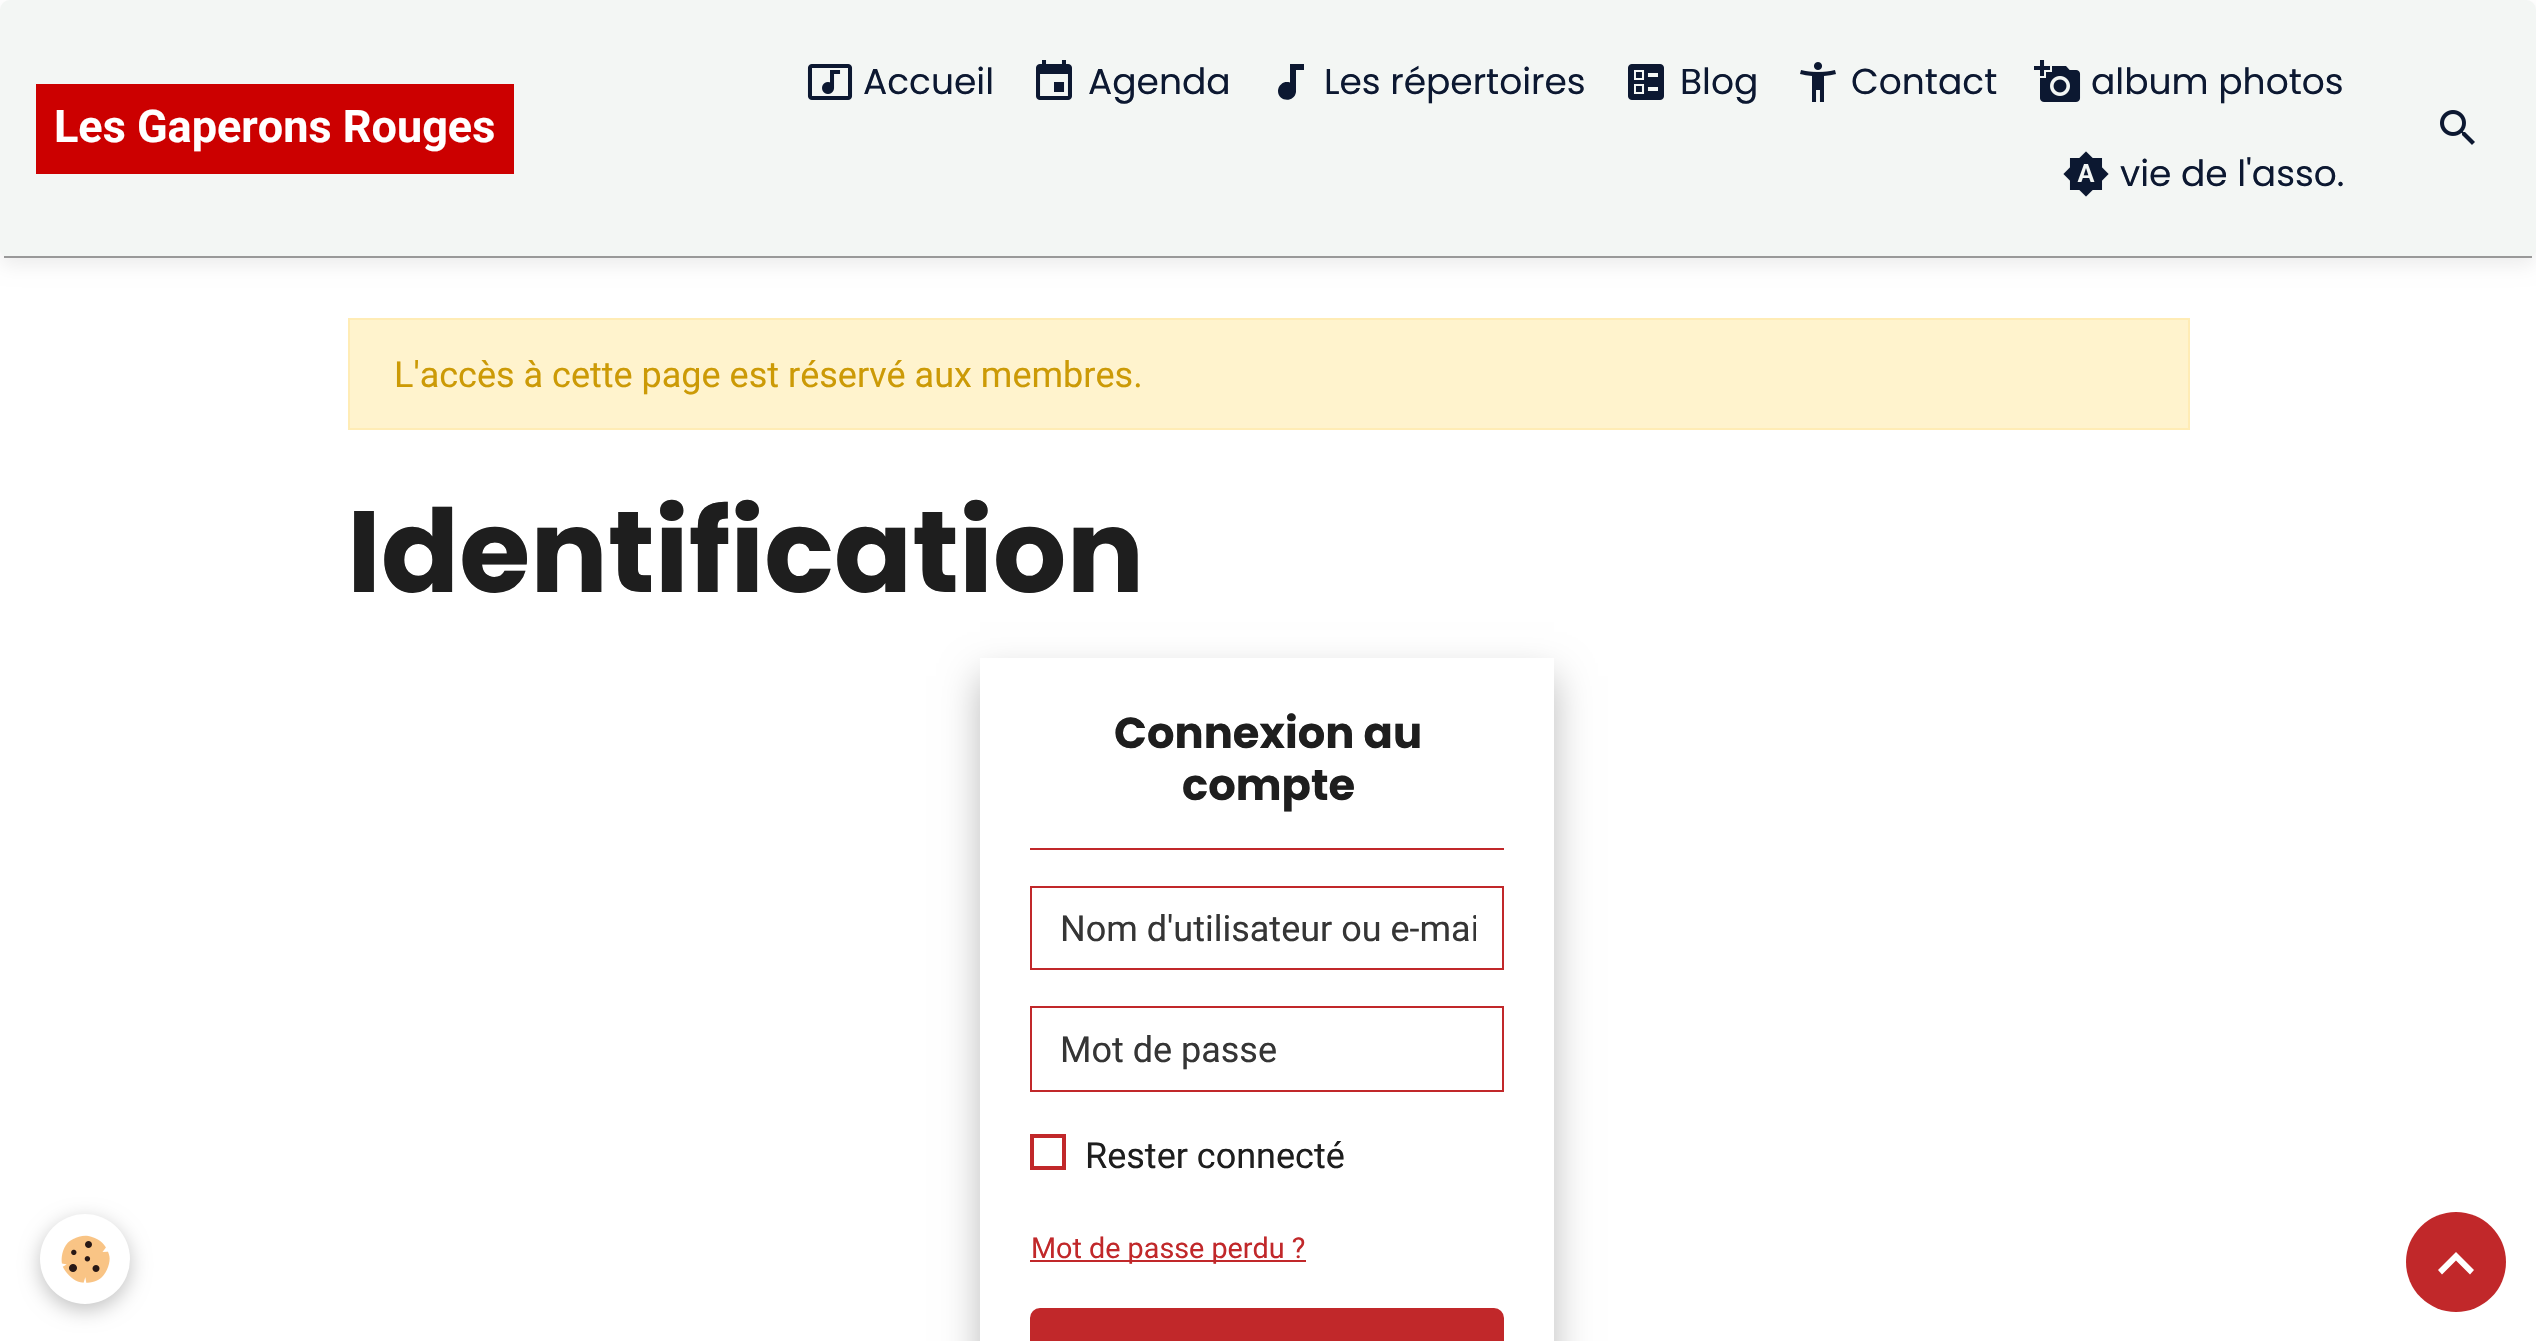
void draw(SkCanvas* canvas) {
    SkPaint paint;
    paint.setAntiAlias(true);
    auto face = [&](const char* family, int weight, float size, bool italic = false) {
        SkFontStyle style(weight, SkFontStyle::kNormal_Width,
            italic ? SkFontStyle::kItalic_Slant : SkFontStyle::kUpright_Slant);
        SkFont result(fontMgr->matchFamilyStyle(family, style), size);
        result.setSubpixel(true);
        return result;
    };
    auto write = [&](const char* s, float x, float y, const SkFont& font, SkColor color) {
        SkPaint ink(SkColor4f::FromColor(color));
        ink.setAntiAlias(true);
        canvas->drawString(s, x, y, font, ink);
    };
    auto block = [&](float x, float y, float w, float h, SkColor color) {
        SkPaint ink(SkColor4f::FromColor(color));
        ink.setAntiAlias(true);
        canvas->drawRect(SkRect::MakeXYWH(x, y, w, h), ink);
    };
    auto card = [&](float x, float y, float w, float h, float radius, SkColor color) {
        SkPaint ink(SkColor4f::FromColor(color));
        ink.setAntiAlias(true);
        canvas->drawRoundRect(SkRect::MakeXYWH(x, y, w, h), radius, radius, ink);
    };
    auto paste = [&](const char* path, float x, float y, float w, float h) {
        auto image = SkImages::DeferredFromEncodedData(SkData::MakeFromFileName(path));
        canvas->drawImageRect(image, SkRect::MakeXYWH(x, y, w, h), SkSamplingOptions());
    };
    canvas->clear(SK_ColorWHITE);
    paint.setColor(SkColorSetRGB(238, 238, 238));
    paint.setMaskFilter(SkMaskFilter::MakeBlur(kNormal_SkBlurStyle, 9));
    canvas->drawRoundRect(SkRect::MakeXYWH(0, 8, 2536, 258), 10, 10, paint);
    paint.setMaskFilter(nullptr);
    card(0, 0, 2536, 258, 10, SkColorSetRGB(243, 246, 244));
    block(4, 256, 2528, 2, SkColorSetRGB(153, 153, 153));
    block(36, 84, 478, 90, SkColorSetRGB(204, 0, 0));
    auto kFont1 = face("Roboto", 700, 45);
    write("Les Gaperons Rouges", 54, 142, kFont1, SK_ColorWHITE);
    paste("pic1.png", 807, 64, 46, 36);
    auto kFont2 = face("Poppins", 400, 36);
    write("Accueil", 863, 94, kFont2, SkColorSetRGB(12, 24, 49));
    paste("pic2.png", 1036, 60, 36, 40);
    write("Agenda", 1088, 94, kFont2, SkColorSetRGB(12, 24, 49));
    paint.setColor(SkColorSetRGB(12, 24, 49));
    canvas->drawPath(SkPathBuilder().moveTo(1290, 64).lineTo(1304, 64).lineTo(1304, 70).lineTo(1296, 70).lineTo(1296, 92).cubicTo(1294.5f, 103, 1278, 102, 1278, 91).cubicTo(1278, 88.5f, 1279, 86, 1281.5f, 84).cubicTo(1283.5f, 82, 1287, 81.5f, 1290, 82.5f).close().detach(), paint);
    write("Les répertoires", 1324, 94, kFont2, SkColorSetRGB(12, 24, 49));
    paste("pic3.png", 1628, 64, 36, 36);
    write("Blog", 1680, 94, kFont2, SkColorSetRGB(12, 24, 49));
    paste("pic4.png", 1800, 62, 36, 40);
    write("Contact", 1851, 94, kFont2, SkColorSetRGB(12, 24, 49));
    paste("pic5.png", 2034, 60, 47, 42);
    write("album photos", 2091, 94, kFont2, SkColorSetRGB(12, 24, 49));
    paste("pic6.png", 2063, 151, 46, 46);
    write("vie de l'asso.", 2120, 186, kFont2, SkColorSetRGB(12, 24, 49));
    paste("pic7.png", 2440, 110, 35, 35);
    paint.setColor(SkColorSetARGB(61, 0, 0, 0));
    paint.setMaskFilter(SkMaskFilter::MakeBlur(kNormal_SkBlurStyle, 10));
    canvas->drawRoundRect(SkRect::MakeXYWH(40, 1220, 90, 90), 45, 45, paint);
    paint.setMaskFilter(nullptr);
    paint.setColor(SK_ColorWHITE);
    canvas->drawCircle(85, 1259, 45, paint);
    paste("pic8.png", 61, 1235, 49, 48);
    paint.setColor(SkColorSetRGB(255, 243, 205));
    canvas->drawRect(SkRect::MakeXYWH(349, 319, 1840, 110), paint);
    paint.setStyle(SkPaint::kStroke_Style);
    paint.setStrokeWidth(2);
    paint.setColor(SkColorSetRGB(255, 236, 181));
    canvas->drawRect(SkRect::MakeXYWH(349, 319, 1840, 110), paint);
    auto kFont3 = face("Roboto", 400, 36);
    write("L'accès à cette page est réservé aux membres.", 394, 387, kFont3, SkColorSetRGB(204, 154, 6));
    auto kFont4 = face("Poppins", 700, 115.25f);
    write("Identification", 347, 592, kFont4, SkColorSetRGB(30, 30, 30));
    canvas->save();
    canvas->clipPath(SkPathBuilder(SkPathFillType::kEvenOdd).moveTo(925, 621).lineTo(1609, 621).lineTo(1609, 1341).lineTo(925, 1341).close().moveTo(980, 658).lineTo(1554, 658).lineTo(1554, 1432).lineTo(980, 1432).close().detach(), true);
    paint.setStyle(SkPaint::kFill_Style);
    paint.setColor(SkColorSetRGB(188, 188, 188));
    paint.setMaskFilter(SkMaskFilter::MakeBlur(kNormal_SkBlurStyle, 18));
    canvas->drawRect(SkRect::MakeXYWH(980, 676, 574, 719), paint);
    paint.setMaskFilter(nullptr);
    canvas->restore();
    block(1030, 848, 474, 2, SkColorSetRGB(193, 40, 42));
    auto kFont5 = face("Poppins", 700, 43.25f);
    write("Connexion au", 1114, 748, kFont5, SkColorSetRGB(30, 30, 30));
    write("compte", 1182, 800, kFont5, SkColorSetRGB(30, 30, 30));
    paint.setStyle(SkPaint::kStroke_Style);
    paint.setColor(SkColorSetRGB(193, 40, 42));
    canvas->drawRect(SkRect::MakeXYWH(1031, 887, 472, 82), paint);
    canvas->save();
    canvas->clipRect(SkRect::MakeXYWH(1060, 908, 416, 42));
    write("Nom d'utilisateur ou e-mai", 1060, 941, kFont3, SkColorSetRGB(53, 53, 53));
    canvas->restore();
    canvas->drawRect(SkRect::MakeXYWH(1031, 1007, 472, 84), paint);
    write("Mot de passe", 1060, 1062, kFont3, SkColorSetRGB(53, 53, 53));
    paint.setStrokeWidth(4);
    canvas->drawRect(SkRect::MakeXYWH(1032, 1136, 32, 32), paint);
    write("Rester connecté", 1085, 1168, kFont3, SkColorSetRGB(30, 30, 30));
    block(1030, 1260, 276, 2, SkColorSetRGB(193, 40, 42));
    auto kFont6 = face("Roboto", 400, 28.75f);
    write("Mot de passe perdu ?", 1031, 1258, kFont6, SkColorSetRGB(193, 40, 42));
    paint.setStyle(SkPaint::kFill_Style);
    canvas->drawRoundRect(SkRect::MakeXYWH(1031, 1309, 472, 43), 9, 9, paint);
    paint.setStyle(SkPaint::kStroke_Style);
    paint.setStrokeWidth(2);
    canvas->drawRoundRect(SkRect::MakeXYWH(1031, 1309, 472, 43), 9, 9, paint);
    paint.setStyle(SkPaint::kFill_Style);
    canvas->drawCircle(2456, 1262, 50, paint);
    paint.setColor(SK_ColorWHITE);
    canvas->drawPath(SkPathBuilder().moveTo(2456, 1252).lineTo(2474, 1270).lineTo(2470, 1274.5f).lineTo(2456, 1260.5f).lineTo(2442, 1274.5f).lineTo(2438, 1270).close().detach(), paint);
}
